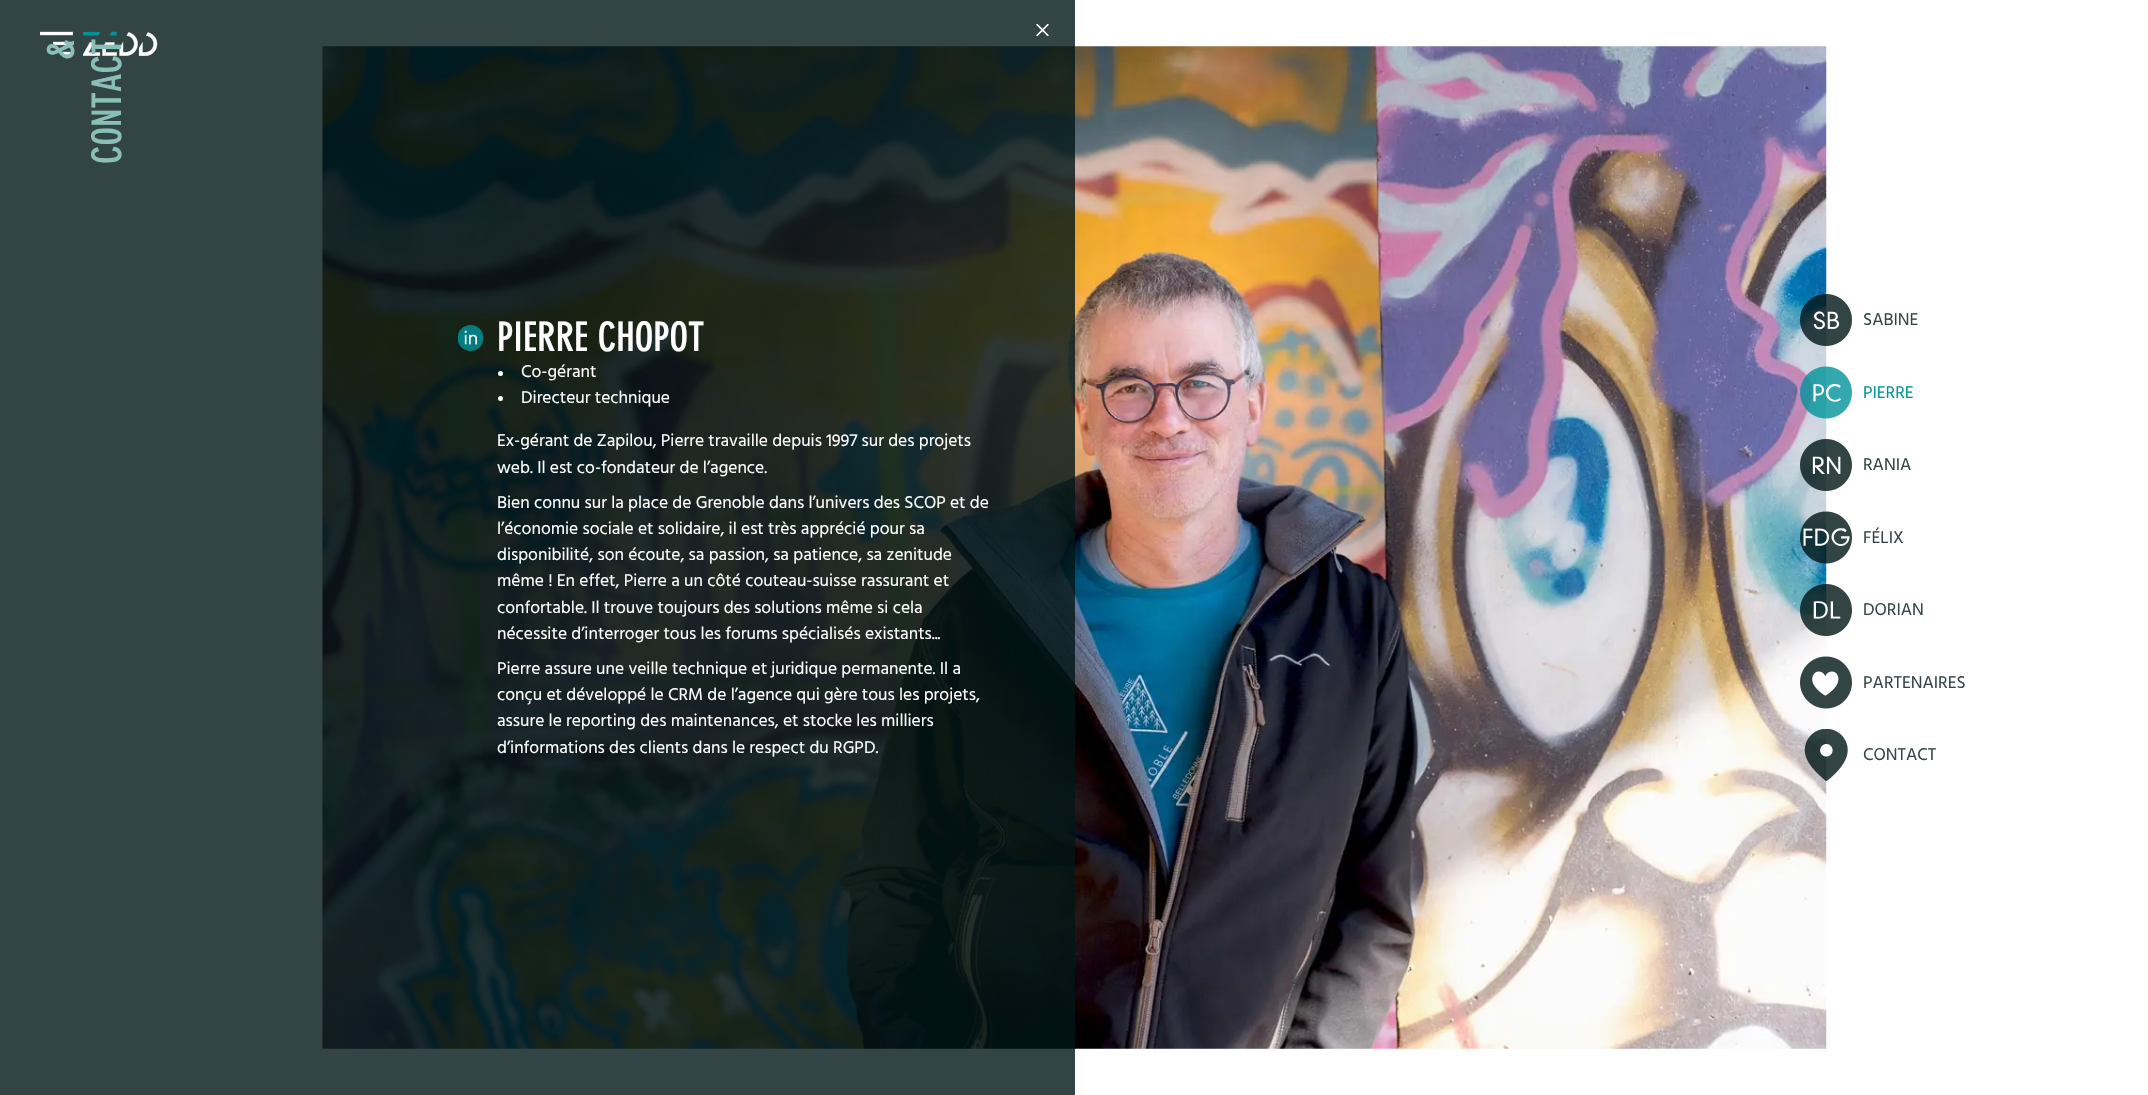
void draw(SkCanvas* canvas) {
    SkPaint paint;
    paint.setAntiAlias(true);
    auto face = [&](const char* family, int weight, float size, bool italic = false) {
        SkFontStyle style(weight, SkFontStyle::kNormal_Width,
            italic ? SkFontStyle::kItalic_Slant : SkFontStyle::kUpright_Slant);
        SkFont result(fontMgr->matchFamilyStyle(family, style), size);
        result.setSubpixel(true);
        return result;
    };
    auto write = [&](const char* s, float x, float y, const SkFont& font, SkColor color) {
        SkPaint ink(SkColor4f::FromColor(color));
        ink.setAntiAlias(true);
        canvas->drawString(s, x, y, font, ink);
    };
    auto block = [&](float x, float y, float w, float h, SkColor color) {
        SkPaint ink(SkColor4f::FromColor(color));
        ink.setAntiAlias(true);
        canvas->drawRect(SkRect::MakeXYWH(x, y, w, h), ink);
    };
    auto paste = [&](const char* path, float x, float y, float w, float h) {
        auto image = SkImages::DeferredFromEncodedData(SkData::MakeFromFileName(path));
        canvas->drawImageRect(image, SkRect::MakeXYWH(x, y, w, h), SkSamplingOptions());
    };
    canvas->clear(SK_ColorWHITE);
    paste("pic3.png", 322, 46, 1505, 1003);
    block(0, 0, 1075, 1095, SkColorSetARGB(204, 0, 21, 22));
    paste("pic1.png", 40, 31, 33, 24);
    paste("pic2.png", 83, 31, 75, 25);
    auto kFont1 = face("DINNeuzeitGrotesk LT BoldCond", 700, 40);
    canvas->save();
    canvas->rotate(-90, 74, 60);
    write("&", 74, 60, kFont1, SkColorSetRGB(137, 191, 183));
    canvas->restore();
    canvas->save();
    canvas->rotate(-90, 121, 164);
    write("CONTACT", 121, 164, kFont1, SkColorSetRGB(137, 191, 183));
    canvas->restore();
    paste("pic4.png", 1036, 24, 13, 12);
    paste("pic5.png", 458, 325, 26, 26);
    write("PIERRE CHOPOT", 497, 351, kFont1, SK_ColorWHITE);
    paint.setColor(SK_ColorWHITE);
    canvas->drawCircle(500.5f, 373.5f, 2.5f, paint);
    auto kFont2 = face("Hind Madurai", 400, 17.5f);
    write("Co-gérant", 521, 377, kFont2, SK_ColorWHITE);
    canvas->drawCircle(500.5f, 398.5f, 2.5f, paint);
    write("Directeur technique", 521, 403, kFont2, SK_ColorWHITE);
    write("Ex-gérant de Zapilou, Pierre travaille depuis 1997 sur des projets", 497, 446, kFont2, SK_ColorWHITE);
    write("web. Il est co-fondateur de l’agence.", 497, 473, kFont2, SK_ColorWHITE);
    write("Bien connu sur la place de Grenoble dans l’univers des SCOP et de", 497, 508, kFont2, SK_ColorWHITE);
    write("l’économie sociale et solidaire, il est très apprécié pour sa", 497, 534, kFont2, SK_ColorWHITE);
    write("disponibilité, son écoute, sa passion, sa patience, sa zenitude", 497, 560, kFont2, SK_ColorWHITE);
    write("même ! En effet, Pierre a un côté couteau-suisse rassurant et", 497, 586, kFont2, SK_ColorWHITE);
    write("confortable. Il trouve toujours des solutions même si cela", 497, 613, kFont2, SK_ColorWHITE);
    write("nécessite d’interroger tous les forums spécialisés existants...", 497, 639, kFont2, SK_ColorWHITE);
    write("Pierre assure une veille technique et juridique permanente. Il a", 497, 674, kFont2, SK_ColorWHITE);
    write("conçu et développé le CRM de l’agence qui gère tous les projets,", 497, 700, kFont2, SK_ColorWHITE);
    write("assure le reporting des maintenances, et stocke les milliers", 497, 726, kFont2, SK_ColorWHITE);
    write("d’informations des clients dans le respect du RGPD.", 497, 753, kFont2, SK_ColorWHITE);
    paste("pic6.png", 1800, 294, 52, 52);
    write("SABINE", 1863, 325, kFont2, SkColorSetRGB(51, 68, 69));
    paste("pic7.png", 1800, 366, 52, 53);
    write("PIERRE", 1863, 398, kFont2, SkColorSetRGB(0, 148, 155));
    paste("pic8.png", 1800, 439, 52, 52);
    write("RANIA", 1863, 470, kFont2, SkColorSetRGB(51, 68, 69));
    paste("pic9.png", 1800, 511, 52, 53);
    write("FÉLIX", 1863, 543, kFont2, SkColorSetRGB(51, 68, 69));
    paste("pic10.png", 1800, 584, 52, 52);
    write("DORIAN", 1863, 615, kFont2, SkColorSetRGB(51, 68, 69));
    paste("pic11.png", 1800, 656, 52, 53);
    write("PARTENAIRES", 1863, 688, kFont2, SkColorSetRGB(51, 68, 69));
    paste("pic12.png", 1804, 729, 44, 52);
    write("CONTACT", 1863, 760, kFont2, SkColorSetRGB(51, 68, 69));
}
